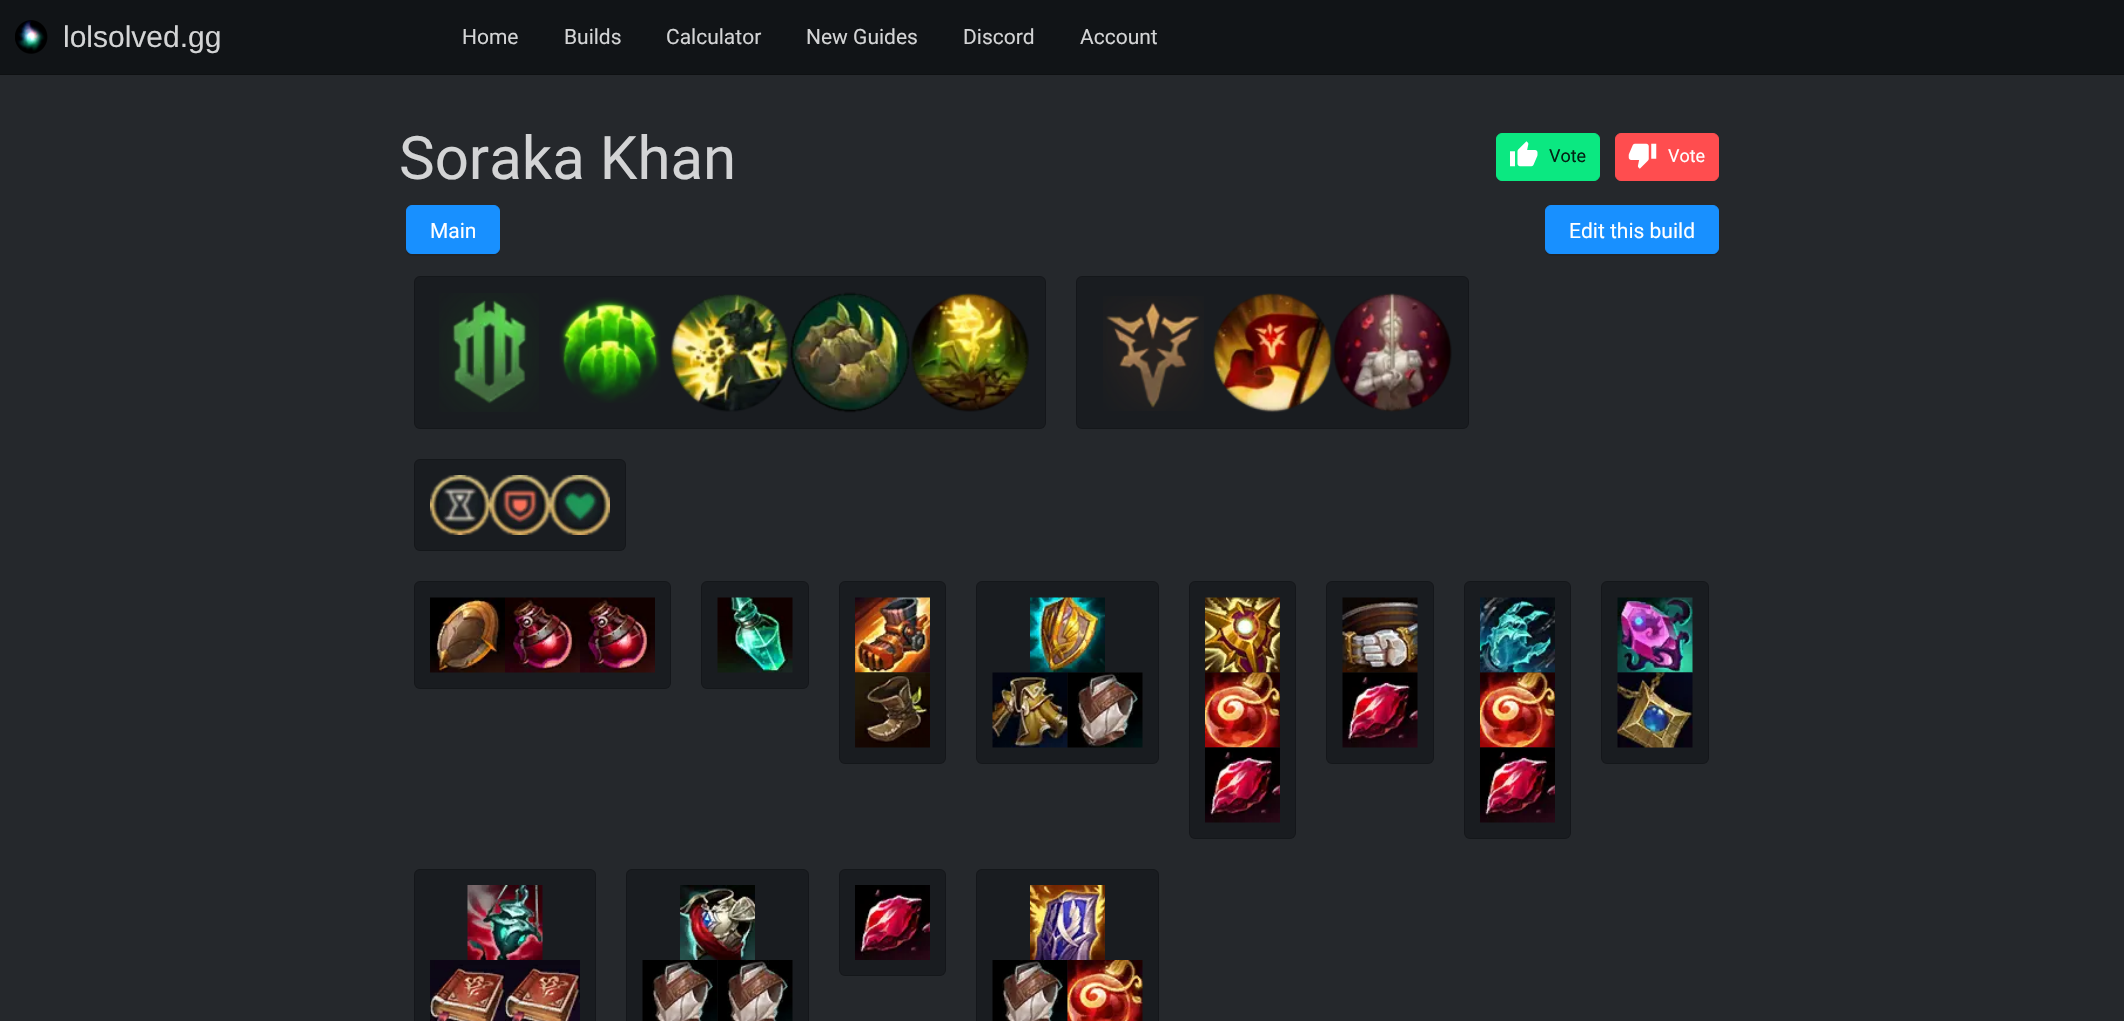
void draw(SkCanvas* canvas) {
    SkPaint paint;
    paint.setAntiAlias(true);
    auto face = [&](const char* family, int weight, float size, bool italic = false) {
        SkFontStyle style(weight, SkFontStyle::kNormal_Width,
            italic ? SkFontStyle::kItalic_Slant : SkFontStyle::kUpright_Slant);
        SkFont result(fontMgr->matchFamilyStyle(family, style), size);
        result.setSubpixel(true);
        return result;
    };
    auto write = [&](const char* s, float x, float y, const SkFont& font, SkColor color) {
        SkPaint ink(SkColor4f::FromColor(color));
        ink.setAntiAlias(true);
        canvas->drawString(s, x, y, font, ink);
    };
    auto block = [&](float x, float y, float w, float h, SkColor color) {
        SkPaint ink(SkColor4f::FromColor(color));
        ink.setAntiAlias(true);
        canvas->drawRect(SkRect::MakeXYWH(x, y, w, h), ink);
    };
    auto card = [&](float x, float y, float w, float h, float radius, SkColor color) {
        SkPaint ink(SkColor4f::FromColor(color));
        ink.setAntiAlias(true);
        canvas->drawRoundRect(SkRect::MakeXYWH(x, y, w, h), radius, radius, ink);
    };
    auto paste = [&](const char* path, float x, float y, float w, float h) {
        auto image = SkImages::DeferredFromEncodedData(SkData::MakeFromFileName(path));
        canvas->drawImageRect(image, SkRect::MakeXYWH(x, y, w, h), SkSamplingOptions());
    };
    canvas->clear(SkColorSetRGB(37, 40, 44));
    block(0, 0, 2124, 74, SkColorSetRGB(17, 20, 23));
    block(0, 74, 2124, 1, SkColorSetRGB(14, 16, 18));
    paste("pic1.png", 15, 20, 33, 34);
    auto kFont1 = face("Liberation Sans", 400, 30);
    write("lolsolved.gg", 63, 47, kFont1, SkColorSetRGB(211, 212, 213));
    auto kFont2 = face("Roboto", 400, 21);
    write("Home", 462, 44, kFont2, SkColorSetRGB(211, 212, 213));
    write("Builds", 564, 44, kFont2, SkColorSetRGB(211, 212, 213));
    write("Calculator", 666, 44, kFont2, SkColorSetRGB(211, 212, 213));
    write("New Guides", 806, 44, kFont2, SkColorSetRGB(211, 212, 213));
    write("Discord", 963, 44, kFont2, SkColorSetRGB(211, 212, 213));
    write("Account", 1080, 44, kFont2, SkColorSetRGB(211, 212, 213));
    auto kFont3 = face("Roboto", 400, 60);
    write("Soraka Khan", 399, 179, kFont3, SkColorSetRGB(211, 212, 213));
    paint.setColor(SkColorSetRGB(11, 232, 129));
    canvas->drawRoundRect(SkRect::MakeXYWH(1496.5f, 133.5f, 103, 47), 5.5f, 5.5f, paint);
    paint.setStyle(SkPaint::kStroke_Style);
    paint.setStrokeWidth(1);
    canvas->drawRoundRect(SkRect::MakeXYWH(1496.5f, 133.5f, 103, 47), 5.5f, 5.5f, paint);
    paste("pic2.png", 1510, 141, 28, 26);
    auto kFont4 = face("Roboto", 400, 18);
    write("Vote", 1549, 162, kFont4, SkColorSetRGB(2, 35, 19));
    paint.setStyle(SkPaint::kFill_Style);
    paint.setColor(SkColorSetRGB(255, 77, 79));
    canvas->drawRoundRect(SkRect::MakeXYWH(1615.5f, 133.5f, 103, 47), 5.5f, 5.5f, paint);
    paint.setStyle(SkPaint::kStroke_Style);
    canvas->drawRoundRect(SkRect::MakeXYWH(1615.5f, 133.5f, 103, 47), 5.5f, 5.5f, paint);
    paste("pic3.png", 1628, 143, 29, 26);
    write("Vote", 1668, 162, kFont4, SK_ColorWHITE);
    paint.setStyle(SkPaint::kFill_Style);
    paint.setColor(SkColorSetRGB(33, 36, 40));
    canvas->drawPath(SkPathBuilder().moveTo(406, 212).lineTo(406, 238).cubicTo(406, 243, 403, 256, 412, 256).lineTo(480, 256).cubicTo(490, 256, 500, 259, 500, 248).cubicTo(500, 251, 497, 254, 494, 254).lineTo(412, 254).cubicTo(409, 254, 406, 251, 406, 248).close().detach(), paint);
    paint.setColor(SkColorSetRGB(24, 144, 255));
    canvas->drawRoundRect(SkRect::MakeXYWH(406.5f, 205.5f, 93, 48), 5.5f, 5.5f, paint);
    paint.setStyle(SkPaint::kStroke_Style);
    canvas->drawRoundRect(SkRect::MakeXYWH(406.5f, 205.5f, 93, 48), 5.5f, 5.5f, paint);
    write("Main", 430, 238, kFont2, SK_ColorWHITE);
    paint.setStyle(SkPaint::kFill_Style);
    paint.setColor(SkColorSetRGB(33, 36, 40));
    canvas->drawPath(SkPathBuilder().moveTo(1545, 248).cubicTo(1545, 252, 1546, 256, 1551, 256).lineTo(1713, 256).cubicTo(1722, 256, 1719, 243, 1719, 238).lineTo(1719, 212).lineTo(1719, 248).cubicTo(1719, 251, 1716, 254, 1713, 254).lineTo(1551, 254).cubicTo(1548, 254, 1545, 251, 1545, 248).close().detach(), paint);
    paint.setColor(SkColorSetRGB(24, 144, 255));
    canvas->drawRoundRect(SkRect::MakeXYWH(1545.5f, 205.5f, 173, 48), 5.5f, 5.5f, paint);
    paint.setStyle(SkPaint::kStroke_Style);
    canvas->drawRoundRect(SkRect::MakeXYWH(1545.5f, 205.5f, 173, 48), 5.5f, 5.5f, paint);
    write("Edit this build", 1569, 238, kFont2, SK_ColorWHITE);
    card(414, 276, 632, 153, 6, SkColorSetRGB(25, 28, 32));
    paint.setColor(SkColorSetARGB(51, 0, 0, 0));
    canvas->drawRoundRect(SkRect::MakeXYWH(414.5f, 276.5f, 631, 152), 5.5f, 5.5f, paint);
    paste("pic4.png", 439, 293, 100, 119);
    paste("pic5.png", 559, 297, 102, 106);
    paste("pic6.png", 670, 294, 119, 118);
    paste("pic7.png", 790, 292, 120, 121);
    paste("pic8.png", 911, 293, 118, 119);
    card(1076, 276, 393, 153, 6, SkColorSetRGB(25, 28, 32));
    canvas->drawRoundRect(SkRect::MakeXYWH(1076.5f, 276.5f, 392, 152), 5.5f, 5.5f, paint);
    paste("pic9.png", 1103, 296, 101, 115);
    paste("pic10.png", 1213, 293, 119, 120);
    paste("pic11.png", 1333, 293, 119, 119);
    card(414, 459, 212, 92, 6, SkColorSetRGB(25, 28, 32));
    canvas->drawRoundRect(SkRect::MakeXYWH(414.5f, 459.5f, 211, 91), 5.5f, 5.5f, paint);
    paste("pic12.png", 430, 475, 60, 60);
    paste("pic13.png", 490, 475, 60, 60);
    paste("pic14.png", 550, 475, 60, 60);
    card(414, 581, 257, 108, 6, SkColorSetRGB(25, 28, 32));
    canvas->drawRoundRect(SkRect::MakeXYWH(414.5f, 581.5f, 256, 107), 5.5f, 5.5f, paint);
    paste("pic15.png", 430, 597, 75, 76);
    paste("pic16.png", 505, 597, 75, 76);
    paste("pic16.png", 580, 597, 75, 76);
    card(701, 581, 108, 108, 6, SkColorSetRGB(25, 28, 32));
    canvas->drawRoundRect(SkRect::MakeXYWH(701.5f, 581.5f, 107, 107), 5.5f, 5.5f, paint);
    paste("pic17.png", 717, 597, 76, 76);
    card(839, 581, 107, 183, 6, SkColorSetRGB(25, 28, 32));
    canvas->drawRoundRect(SkRect::MakeXYWH(839.5f, 581.5f, 106, 182), 5.5f, 5.5f, paint);
    paste("pic18.png", 855, 597, 75, 76);
    paste("pic19.png", 855, 672, 75, 76);
    card(976, 581, 183, 183, 6, SkColorSetRGB(25, 28, 32));
    canvas->drawRoundRect(SkRect::MakeXYWH(976.5f, 581.5f, 182, 182), 5.5f, 5.5f, paint);
    paste("pic20.png", 1030, 597, 75, 76);
    paste("pic21.png", 992, 672, 76, 76);
    paste("pic22.png", 1067, 672, 76, 76);
    card(1189, 581, 107, 258, 6, SkColorSetRGB(25, 28, 32));
    canvas->drawRoundRect(SkRect::MakeXYWH(1189.5f, 581.5f, 106, 257), 5.5f, 5.5f, paint);
    paste("pic23.png", 1205, 597, 75, 76);
    paste("pic24.png", 1205, 672, 75, 76);
    paste("pic25.png", 1205, 747, 75, 76);
    card(1326, 581, 108, 183, 6, SkColorSetRGB(25, 28, 32));
    canvas->drawRoundRect(SkRect::MakeXYWH(1326.5f, 581.5f, 107, 182), 5.5f, 5.5f, paint);
    paste("pic26.png", 1342, 597, 76, 76);
    paste("pic27.png", 1342, 672, 76, 76);
    card(1464, 581, 107, 258, 6, SkColorSetRGB(25, 28, 32));
    canvas->drawRoundRect(SkRect::MakeXYWH(1464.5f, 581.5f, 106, 257), 5.5f, 5.5f, paint);
    paste("pic28.png", 1480, 597, 75, 76);
    paste("pic29.png", 1480, 672, 75, 76);
    paste("pic25.png", 1480, 747, 75, 76);
    card(1601, 581, 108, 183, 6, SkColorSetRGB(25, 28, 32));
    canvas->drawRoundRect(SkRect::MakeXYWH(1601.5f, 581.5f, 107, 182), 5.5f, 5.5f, paint);
    paste("pic30.png", 1617, 597, 76, 76);
    paste("pic31.png", 1617, 672, 76, 76);
    paint.setStyle(SkPaint::kFill_Style);
    paint.setColor(SkColorSetRGB(25, 28, 32));
    canvas->drawPath(SkPathBuilder().moveTo(420, 869).lineTo(590, 869).cubicTo(593.5f, 869, 596, 871.5f, 596, 875).lineTo(596, 1021).lineTo(414, 1021).lineTo(414, 875).cubicTo(414, 871.5f, 416.5f, 869, 420, 869).close().detach(), paint);
    paint.setStyle(SkPaint::kStroke_Style);
    paint.setColor(SkColorSetARGB(51, 0, 0, 0));
    canvas->drawRoundRect(SkRect::MakeXYWH(414.5f, 869.5f, 181, 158), 5.5f, 5.5f, paint);
    paste("pic32.png", 467, 885, 76, 75);
    paste("pic33.png", 430, 960, 75, 61);
    paste("pic33.png", 505, 960, 75, 61);
    paint.setStyle(SkPaint::kFill_Style);
    paint.setColor(SkColorSetRGB(25, 28, 32));
    canvas->drawPath(SkPathBuilder().moveTo(632, 869).lineTo(803, 869).cubicTo(806.5f, 869, 809, 871.5f, 809, 875).lineTo(809, 1021).lineTo(626, 1021).lineTo(626, 875).cubicTo(626, 871.5f, 628.5f, 869, 632, 869).close().detach(), paint);
    paint.setStyle(SkPaint::kStroke_Style);
    paint.setColor(SkColorSetARGB(51, 0, 0, 0));
    canvas->drawRoundRect(SkRect::MakeXYWH(626.5f, 869.5f, 182, 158), 5.5f, 5.5f, paint);
    paste("pic34.png", 680, 885, 75, 75);
    paste("pic35.png", 642, 960, 76, 61);
    paste("pic36.png", 717, 960, 76, 61);
    card(839, 869, 107, 107, 6, SkColorSetRGB(25, 28, 32));
    canvas->drawRoundRect(SkRect::MakeXYWH(839.5f, 869.5f, 106, 106), 5.5f, 5.5f, paint);
    paste("pic37.png", 855, 885, 75, 75);
    paint.setStyle(SkPaint::kFill_Style);
    paint.setColor(SkColorSetRGB(25, 28, 32));
    canvas->drawPath(SkPathBuilder().moveTo(982, 869).lineTo(1153, 869).cubicTo(1156.5f, 869, 1159, 871.5f, 1159, 875).lineTo(1159, 1021).lineTo(976, 1021).lineTo(976, 875).cubicTo(976, 871.5f, 978.5f, 869, 982, 869).close().detach(), paint);
    paint.setStyle(SkPaint::kStroke_Style);
    paint.setColor(SkColorSetARGB(51, 0, 0, 0));
    canvas->drawRoundRect(SkRect::MakeXYWH(976.5f, 869.5f, 182, 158), 5.5f, 5.5f, paint);
    paste("pic38.png", 1030, 885, 75, 75);
    paste("pic35.png", 992, 960, 76, 61);
    paste("pic39.png", 1067, 960, 76, 61);
}
